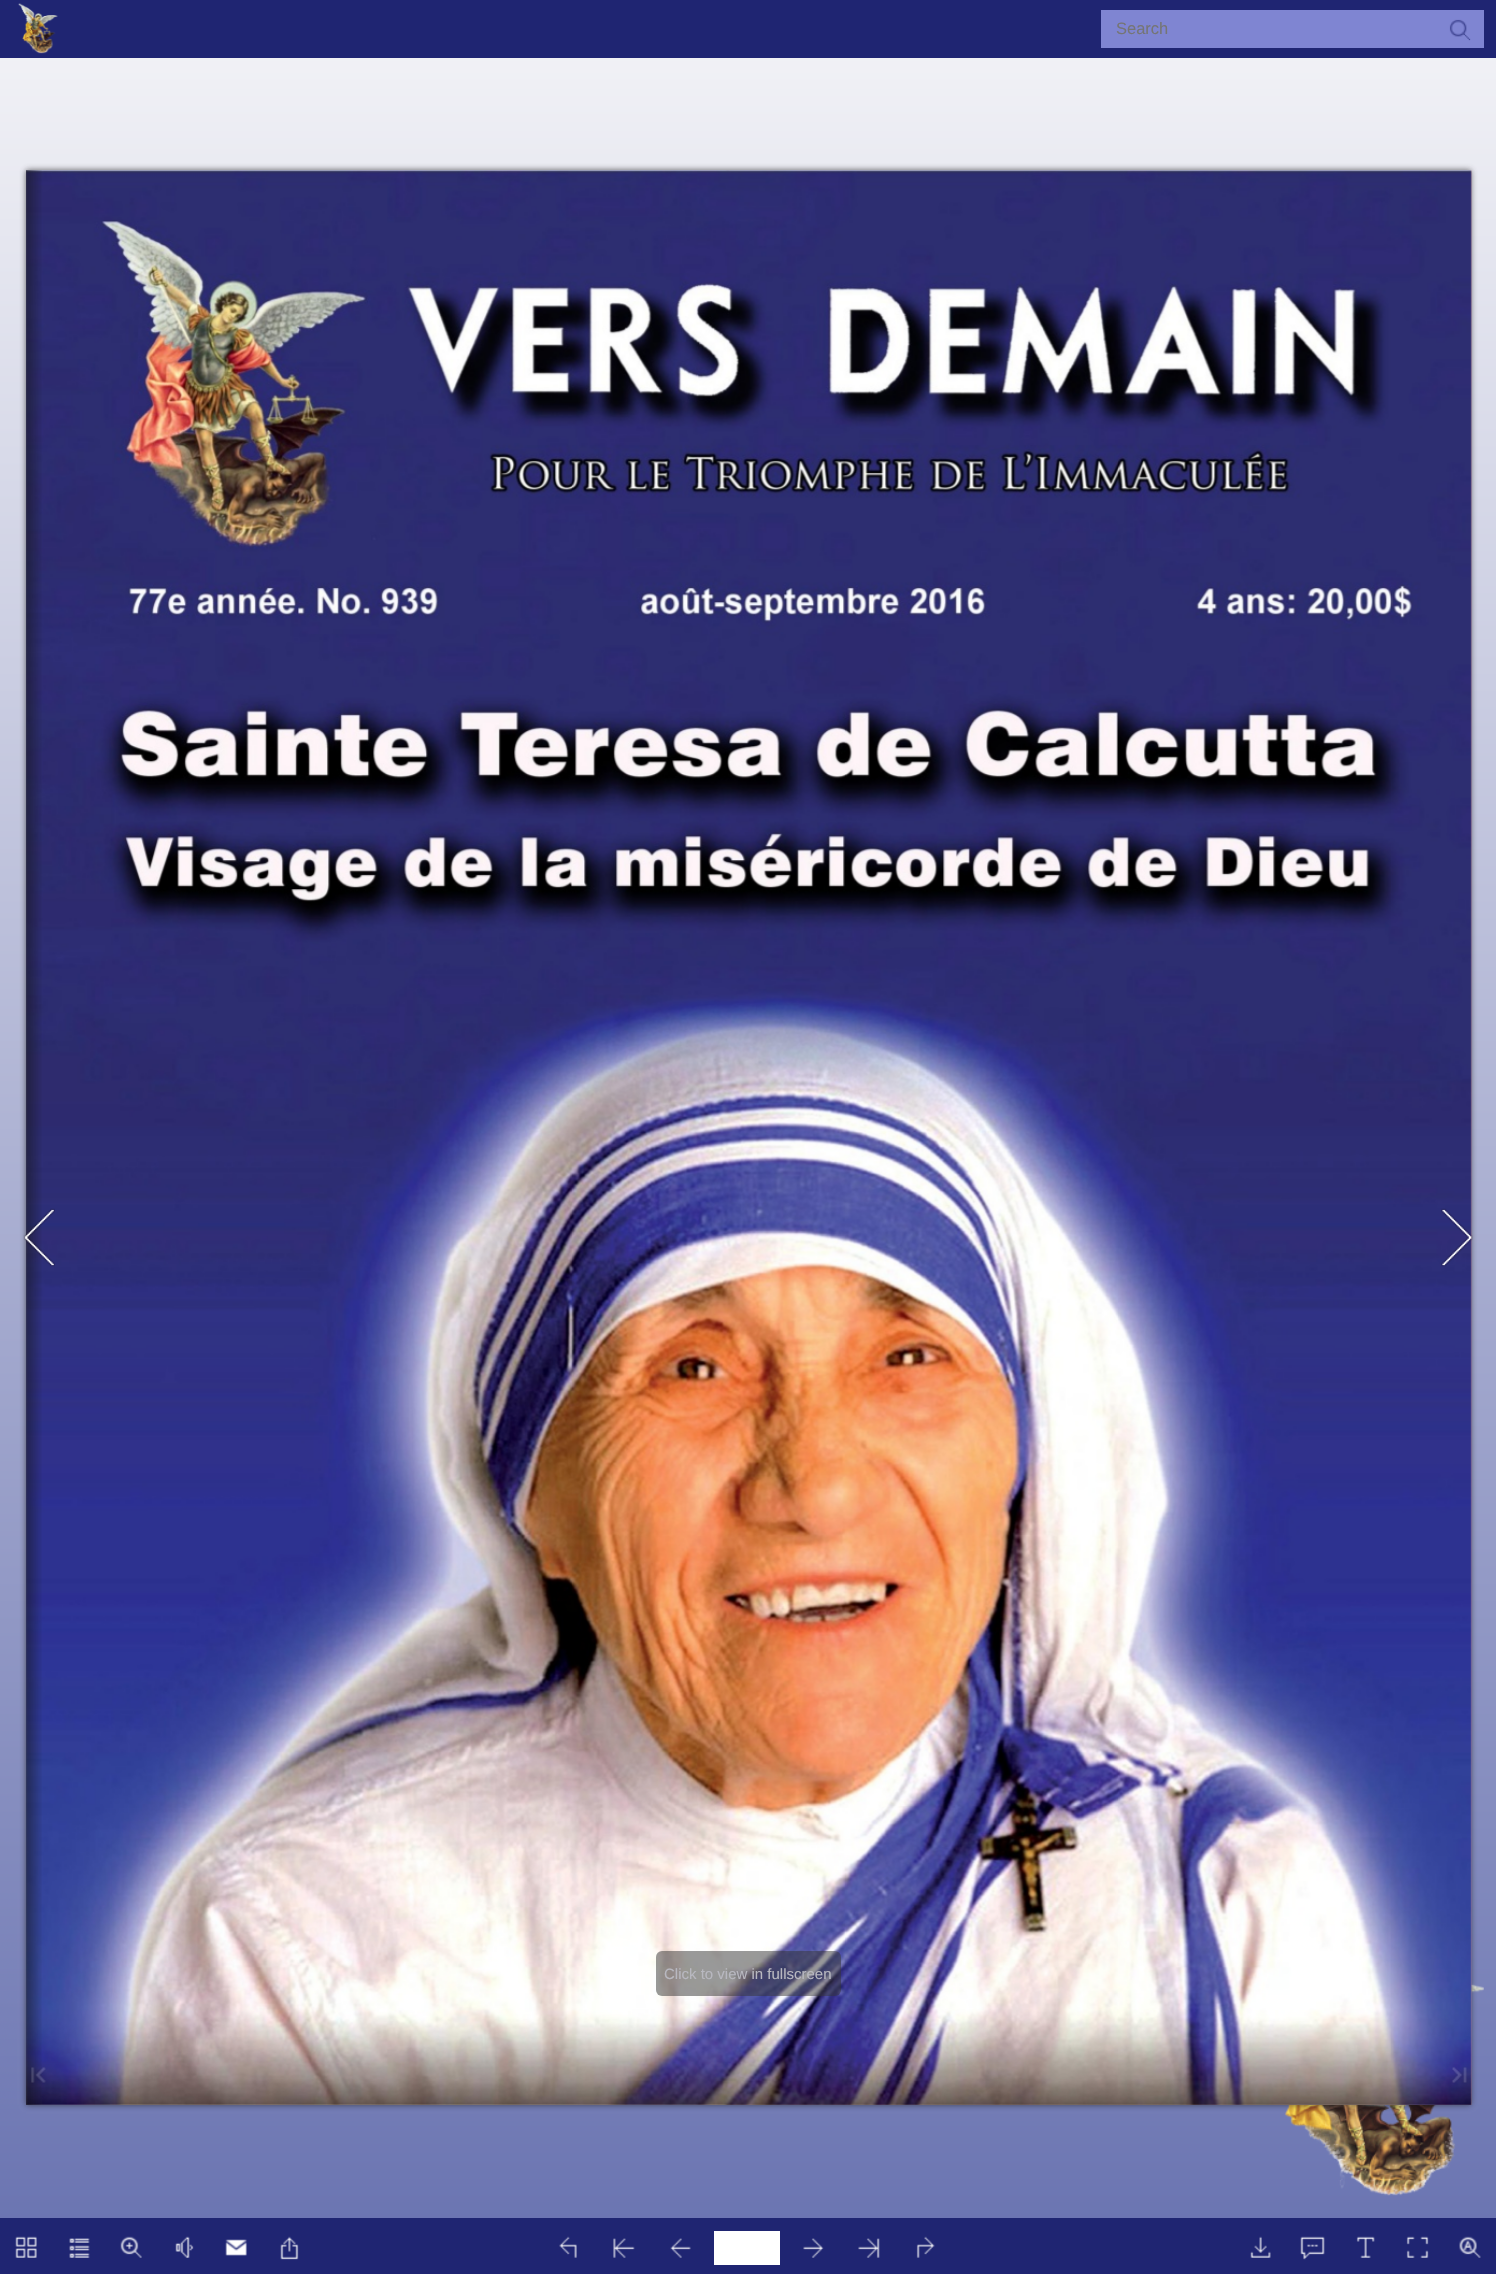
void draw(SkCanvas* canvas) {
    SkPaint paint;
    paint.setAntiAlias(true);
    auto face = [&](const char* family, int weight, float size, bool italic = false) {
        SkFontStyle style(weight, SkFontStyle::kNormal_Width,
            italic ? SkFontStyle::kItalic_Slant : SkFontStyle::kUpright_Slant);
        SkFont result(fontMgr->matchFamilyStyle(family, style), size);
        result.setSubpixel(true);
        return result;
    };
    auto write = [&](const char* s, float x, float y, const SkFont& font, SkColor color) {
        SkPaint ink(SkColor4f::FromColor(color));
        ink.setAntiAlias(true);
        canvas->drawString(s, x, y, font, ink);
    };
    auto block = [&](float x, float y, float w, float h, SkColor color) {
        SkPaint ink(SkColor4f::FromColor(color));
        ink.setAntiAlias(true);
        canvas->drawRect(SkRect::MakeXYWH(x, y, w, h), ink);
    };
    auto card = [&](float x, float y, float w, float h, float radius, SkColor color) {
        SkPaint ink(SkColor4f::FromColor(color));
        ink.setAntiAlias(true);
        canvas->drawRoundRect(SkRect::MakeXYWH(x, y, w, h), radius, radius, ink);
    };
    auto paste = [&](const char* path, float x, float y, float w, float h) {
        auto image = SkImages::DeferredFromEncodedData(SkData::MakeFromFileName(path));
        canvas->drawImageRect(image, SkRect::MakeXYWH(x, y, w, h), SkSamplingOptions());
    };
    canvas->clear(SK_ColorWHITE);
    block(0, 0, 1496, 58, SkColorSetRGB(31, 37, 114));
    paste("pic1.png", 18, 3, 40, 51);
    block(1101, 10, 383, 38, SkColorSetRGB(127, 133, 210));
    auto kFont1 = face("Liberation Sans", 400, 16.5f);
    write("Search", 1116, 34, kFont1, SkColorSetRGB(117, 117, 117));
    paste("pic2.png", 1449, 19, 22, 22);
    {
        const SkColor colors[] = {SkColorSetRGB(244, 244, 247), SkColorSetRGB(104, 114, 176)};
        const float stops[] = {0, 1};
        const SkPoint ends[] = {{748, 0}, {748, 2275}};
        paint.setShader(SkGradientShader::MakeLinear(ends, colors, stops, 2, SkTileMode::kClamp));
        paint.setAlpha(255);
    }
    canvas->drawRect(SkRect::MakeXYWH(0, 58, 1496, 2160), paint);
    paste("pic8.png", 1284, 1983, 200, 213);
    paint.setShader(nullptr);
    paint.setColor(SkColorSetARGB(179, 40, 40, 40));
    paint.setMaskFilter(SkMaskFilter::MakeBlur(kNormal_SkBlurStyle, 3));
    canvas->drawRect(SkRect::MakeXYWH(26, 170, 1445, 1935), paint);
    paint.setMaskFilter(nullptr);
    paste("pic5.png", 26, 170, 1446, 1935);
    paste("pic6.png", 26, 170, 1445, 1935);
    paste("pic7.png", 26, 170, 1446, 1935);
    {
        const SkColor colors[] = {SkColorSetARGB(128, 20, 20, 20), SkColorSetARGB(0, 20, 20, 20)};
        const float stops[] = {0, 1};
        const SkPoint ends[] = {{26, 1138}, {43, 1138}};
        paint.setShader(SkGradientShader::MakeLinear(ends, colors, stops, 2, SkTileMode::kClamp));
        paint.setAlpha(255);
    }
    canvas->drawRect(SkRect::MakeXYWH(26, 170, 16, 1935), paint);
    paste("pic3.png", 23, 1208, 32, 59);
    paste("pic4.png", 1441, 1208, 32, 59);
    card(656, 1951, 185, 45, 6, SkColorSetARGB(128, 51, 51, 51));
    auto kFont2 = face("Liberation Sans", 400, 15);
    write("Click to view in fullscreen", 664, 1979, kFont2, SkColorSetRGB(184, 184, 192));
    paste("pic9.png", 31, 2067, 15, 16);
    paste("pic10.png", 1452, 2067, 15, 16);
    block(0, 2218, 1496, 56, SkColorSetRGB(31, 37, 114));
    paste("pic11.png", 15, 2236, 22, 22);
    paste("pic12.png", 69, 2238, 21, 20);
    paste("pic13.png", 120, 2236, 22, 22);
    paste("pic14.png", 175, 2236, 19, 22);
    paste("pic15.png", 225, 2239, 22, 17);
    paste("pic16.png", 280, 2236, 19, 24);
    paste("pic17.png", 559, 2236, 18, 22);
    paste("pic18.png", 613, 2238, 22, 20);
    paste("pic19.png", 670, 2238, 21, 20);
    block(714, 2231, 66, 34, SK_ColorWHITE);
    paste("pic20.png", 803, 2238, 21, 20);
    paste("pic21.png", 858, 2238, 22, 20);
    paste("pic22.png", 916, 2236, 19, 22);
    paste("pic23.png", 1250, 2236, 21, 22);
    paste("pic24.png", 1300, 2236, 25, 24);
    paste("pic25.png", 1356, 2236, 19, 22);
    paste("pic26.png", 1406, 2236, 23, 22);
    paste("pic27.png", 1459, 2236, 22, 22);
}
